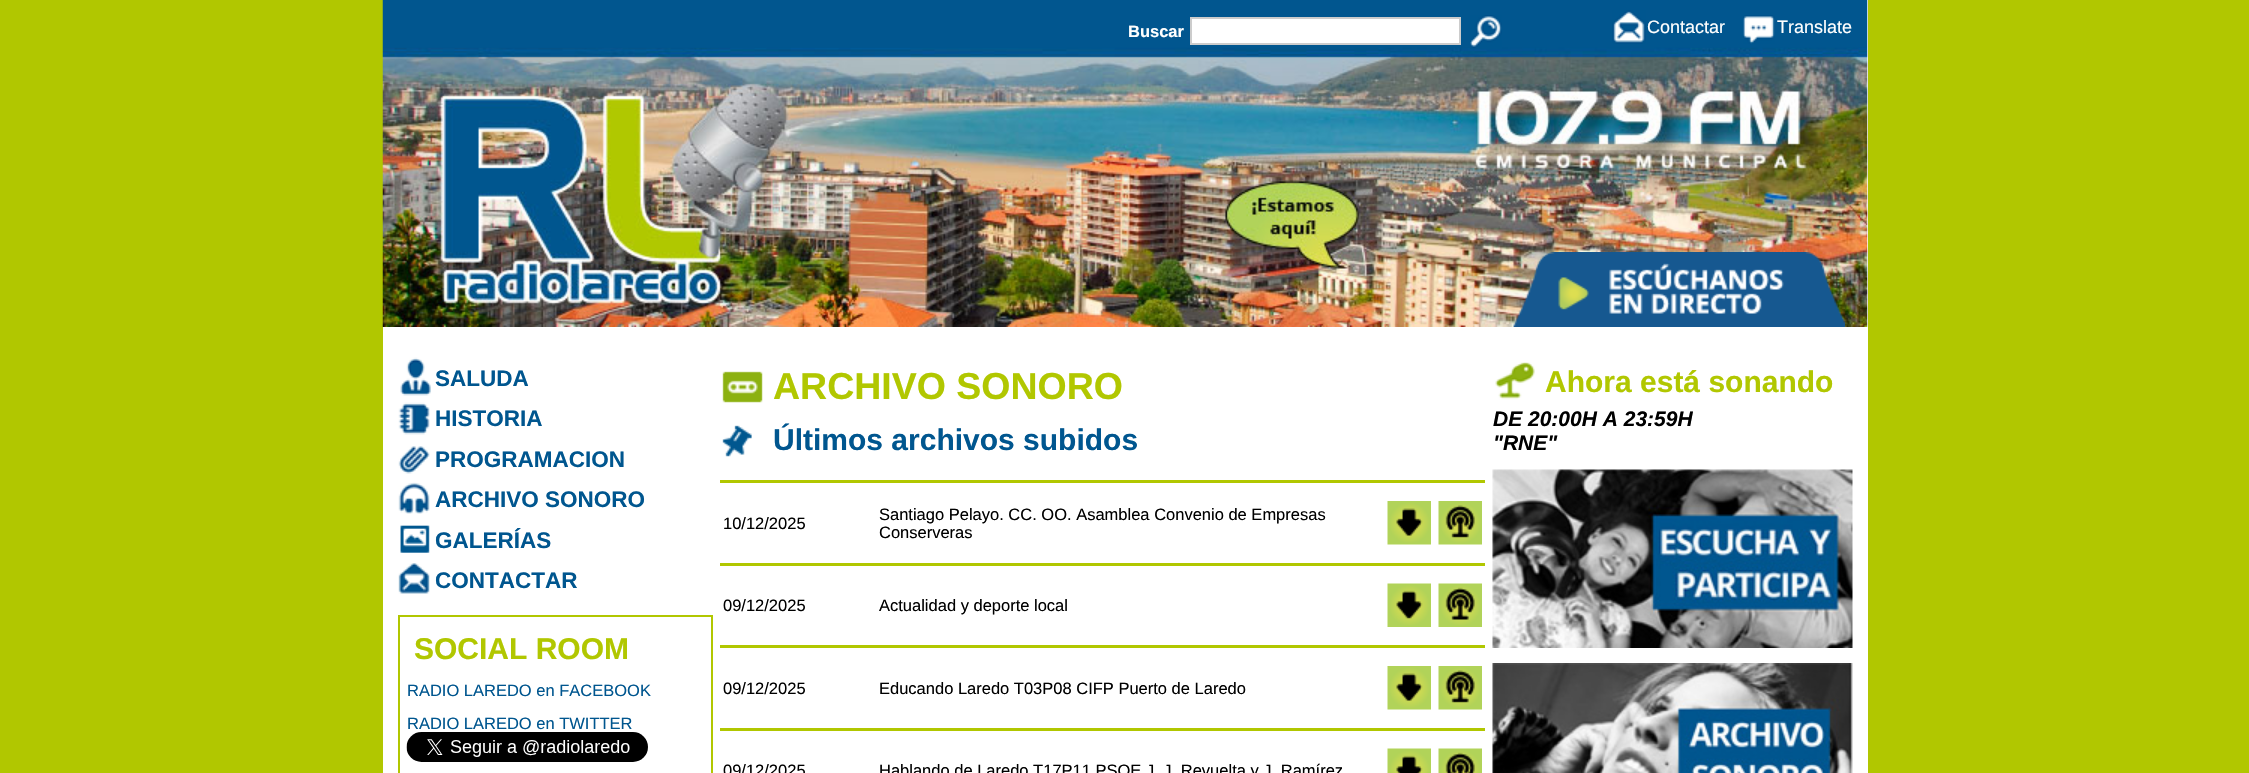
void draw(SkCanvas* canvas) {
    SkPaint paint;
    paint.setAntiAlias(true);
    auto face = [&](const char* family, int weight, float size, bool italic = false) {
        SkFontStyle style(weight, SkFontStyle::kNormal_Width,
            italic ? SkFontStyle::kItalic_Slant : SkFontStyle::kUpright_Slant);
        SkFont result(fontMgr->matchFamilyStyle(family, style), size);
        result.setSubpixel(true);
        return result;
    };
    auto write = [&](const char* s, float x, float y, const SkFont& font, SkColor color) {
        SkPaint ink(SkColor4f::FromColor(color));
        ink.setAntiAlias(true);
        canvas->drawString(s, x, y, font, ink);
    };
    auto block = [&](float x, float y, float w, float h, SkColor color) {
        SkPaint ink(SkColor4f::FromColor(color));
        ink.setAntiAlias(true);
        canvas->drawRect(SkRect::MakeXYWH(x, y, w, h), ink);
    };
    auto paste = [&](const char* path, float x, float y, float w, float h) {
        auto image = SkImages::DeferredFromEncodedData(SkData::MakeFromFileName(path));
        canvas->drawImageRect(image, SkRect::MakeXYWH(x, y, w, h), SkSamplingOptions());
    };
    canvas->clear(SkColorSetRGB(177, 199, 0));
    block(383, 0, 1485, 773, SK_ColorWHITE);
    paste("pic1.png", 382, 0, 1486, 327);
    auto kFont1 = face("Liberation Sans", 700, 16.5f);
    write("Buscar", 1128, 37, kFont1, SK_ColorWHITE);
    paint.setColor(SK_ColorWHITE);
    canvas->drawRect(SkRect::MakeXYWH(1191, 18, 269, 26), paint);
    paint.setStyle(SkPaint::kStroke_Style);
    paint.setStrokeWidth(2);
    paint.setColor(SkColorSetRGB(204, 204, 204));
    canvas->drawRect(SkRect::MakeXYWH(1191, 18, 269, 26), paint);
    paste("pic2.png", 1470, 15, 32, 34);
    paste("pic3.png", 1612, 10, 34, 34);
    auto kFont2 = face("Liberation Sans", 400, 18);
    write("Contactar", 1647, 33, kFont2, SK_ColorWHITE);
    paste("pic4.png", 1743, 15, 32, 29);
    write("Translate", 1777, 33, kFont2, SK_ColorWHITE);
    paste("pic5.png", 1513, 252, 332, 75);
    paste("pic6.png", 400, 357, 31, 39);
    auto kFont3 = face("Liberation Sans", 700, 22.5f);
    write("SALUDA", 435, 386, kFont3, SkColorSetRGB(0, 86, 143));
    paste("pic7.png", 398, 402, 32, 33);
    write("HISTORIA", 435, 426, kFont3, SkColorSetRGB(0, 86, 143));
    paste("pic8.png", 398, 446, 32, 28);
    write("PROGRAMACION", 435, 467, kFont3, SkColorSetRGB(0, 86, 143));
    paste("pic9.png", 398, 482, 32, 32);
    write("ARCHIVO SONORO", 435, 507, kFont3, SkColorSetRGB(0, 86, 143));
    paste("pic10.png", 400, 525, 30, 28);
    write("GALERÍAS", 435, 548, kFont3, SkColorSetRGB(0, 86, 143));
    paste("pic11.png", 398, 563, 32, 31);
    write("CONTACTAR", 435, 588, kFont3, SkColorSetRGB(0, 86, 143));
    paint.setColor(SkColorSetRGB(177, 199, 0));
    canvas->drawRect(SkRect::MakeXYWH(399, 616, 313, 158), paint);
    auto kFont4 = face("Liberation Sans", 700, 30);
    write("SOCIAL ROOM", 414, 659, kFont4, SkColorSetRGB(177, 199, 0));
    auto kFont5 = face("Liberation Sans", 400, 16.5f);
    write("RADIO LAREDO en FACEBOOK", 407, 696, kFont5, SkColorSetRGB(0, 86, 143));
    write("RADIO LAREDO en TWITTER", 407, 729, kFont5, SkColorSetRGB(0, 86, 143));
    paste("pic12.png", 406, 732, 242, 30);
    paste("pic13.png", 722, 371, 41, 32);
    auto kFont6 = face("Liberation Sans", 700, 37.5f);
    write("ARCHIVO SONORO", 773, 399, kFont6, SkColorSetRGB(177, 199, 0));
    paste("pic14.png", 722, 425, 30, 32);
    write("Últimos archivos subidos", 773, 450, kFont4, SkColorSetRGB(0, 86, 143));
    block(720, 480, 765, 3, SkColorSetRGB(177, 199, 0));
    write("10/12/2025", 723, 529, kFont5, SK_ColorBLACK);
    write("Santiago Pelayo. CC. OO. Asamblea Convenio de Empresas", 879, 520, kFont5, SK_ColorBLACK);
    write("Conserveras", 879, 538, kFont5, SK_ColorBLACK);
    paste("pic15.png", 1387, 501, 44, 44);
    paste("pic16.png", 1438, 501, 44, 44);
    block(720, 563, 765, 3, SkColorSetRGB(177, 199, 0));
    write("09/12/2025", 723, 611, kFont5, SK_ColorBLACK);
    write("Actualidad y deporte local", 879, 611, kFont5, SK_ColorBLACK);
    paste("pic17.png", 1387, 583, 44, 44);
    paste("pic18.png", 1438, 583, 44, 44);
    block(720, 645, 765, 3, SkColorSetRGB(177, 199, 0));
    write("09/12/2025", 723, 694, kFont5, SK_ColorBLACK);
    write("Educando Laredo T03P08 CIFP Puerto de Laredo", 879, 694, kFont5, SK_ColorBLACK);
    paste("pic15.png", 1387, 666, 44, 44);
    paste("pic16.png", 1438, 666, 44, 44);
    block(720, 728, 765, 3, SkColorSetRGB(177, 199, 0));
    write("09/12/2025", 723, 776, kFont5, SK_ColorBLACK);
    write("Hablando de Laredo T17P11 PSOE J. J. Revuelta y J. Ramírez", 879, 776, kFont5, SK_ColorBLACK);
    paste("pic19.png", 1387, 748, 44, 25);
    paste("pic20.png", 1438, 748, 44, 25);
    paste("pic21.png", 1495, 362, 40, 38);
    write("Ahora está sonando", 1545, 392, kFont4, SkColorSetRGB(177, 199, 0));
    auto kFont7 = face("Liberation Sans", 700, 21, true);
    write("DE 20:00H A 23:59H", 1493, 426, kFont7, SK_ColorBLACK);
    write("\"RNE\"", 1493, 450, kFont7, SK_ColorBLACK);
    paste("pic22.png", 1492, 469, 361, 179);
    paste("pic23.png", 1492, 663, 361, 110);
}
